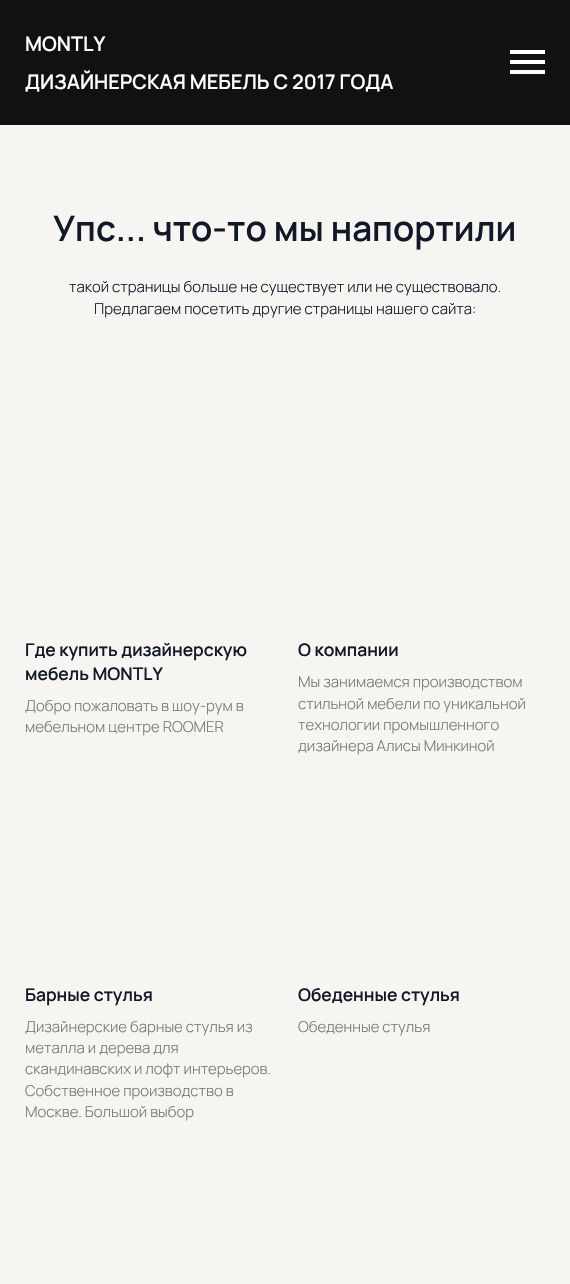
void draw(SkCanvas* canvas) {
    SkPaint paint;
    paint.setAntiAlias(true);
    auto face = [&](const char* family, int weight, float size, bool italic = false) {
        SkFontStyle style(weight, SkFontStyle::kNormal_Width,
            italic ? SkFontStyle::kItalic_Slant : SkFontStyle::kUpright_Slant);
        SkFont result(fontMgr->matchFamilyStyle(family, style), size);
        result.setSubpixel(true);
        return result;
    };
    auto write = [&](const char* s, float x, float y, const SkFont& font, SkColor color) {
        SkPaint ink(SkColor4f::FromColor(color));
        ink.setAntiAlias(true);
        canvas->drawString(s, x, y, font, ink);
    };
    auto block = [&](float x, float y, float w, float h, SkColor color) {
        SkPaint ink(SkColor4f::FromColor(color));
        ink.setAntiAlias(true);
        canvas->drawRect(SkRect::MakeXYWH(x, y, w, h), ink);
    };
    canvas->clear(SkColorSetRGB(247, 245, 242));
    block(0, 0, 570, 125, SkColorSetRGB(17, 17, 17));
    auto kFont1 = face("Manrope", 600, 20);
    write("MONTLY", 25, 51, kFont1, SK_ColorWHITE);
    write("ДИЗАЙНЕРСКАЯ МЕБЕЛЬ С 2017 ГОДА", 25, 89, kFont1, SK_ColorWHITE);
    block(510, 50, 35, 4, SK_ColorWHITE);
    block(510, 60, 35, 4, SK_ColorWHITE);
    block(510, 70, 35, 4, SK_ColorWHITE);
    auto kFont2 = face("Manrope", 600, 35);
    write("Упс... что-то мы напортили", 53, 241, kFont2, SkColorSetRGB(17, 24, 39));
    auto kFont3 = face("Manrope", 300, 15);
    write("такой страницы больше не существует или не существовало.", 69, 292, kFont3, SkColorSetRGB(17, 24, 39));
    write("Предлагаем посетить другие страницы нашего сайта:", 94, 314, kFont3, SkColorSetRGB(17, 24, 39));
    auto kFont4 = face("Manrope", 600, 17.5f);
    write("Где купить дизайнерскую", 25, 656, kFont4, SkColorSetRGB(17, 24, 39));
    write("мебель MONTLY", 25, 680, kFont4, SkColorSetRGB(17, 24, 39));
    write("Добро пожаловать в шоу-рум в", 25, 711, kFont3, SkColorSetRGB(119, 119, 119));
    write("мебельном центре ROOMER", 25, 732, kFont3, SkColorSetRGB(119, 119, 119));
    write("О компании", 298, 656, kFont4, SkColorSetRGB(17, 24, 39));
    write("Мы занимаемся производством", 298, 687, kFont3, SkColorSetRGB(119, 119, 119));
    write("стильной мебели по уникальной", 298, 709, kFont3, SkColorSetRGB(119, 119, 119));
    write("технологии промышленного", 298, 730, kFont3, SkColorSetRGB(119, 119, 119));
    write("дизайнера Алисы Минкиной", 298, 751, kFont3, SkColorSetRGB(119, 119, 119));
    write("Барные стулья", 25, 1001, kFont4, SkColorSetRGB(17, 24, 39));
    write("Дизайнерские барные стулья из", 25, 1032, kFont3, SkColorSetRGB(119, 119, 119));
    write("металла и дерева для", 25, 1053, kFont3, SkColorSetRGB(119, 119, 119));
    write("скандинавских и лофт интерьеров.", 25, 1074, kFont3, SkColorSetRGB(119, 119, 119));
    write("Собственное производство в", 25, 1096, kFont3, SkColorSetRGB(119, 119, 119));
    write("Москве. Большой выбор", 25, 1117, kFont3, SkColorSetRGB(119, 119, 119));
    write("Обеденные стулья", 298, 1001, kFont4, SkColorSetRGB(17, 24, 39));
    write("Обеденные стулья", 298, 1032, kFont3, SkColorSetRGB(119, 119, 119));
}
